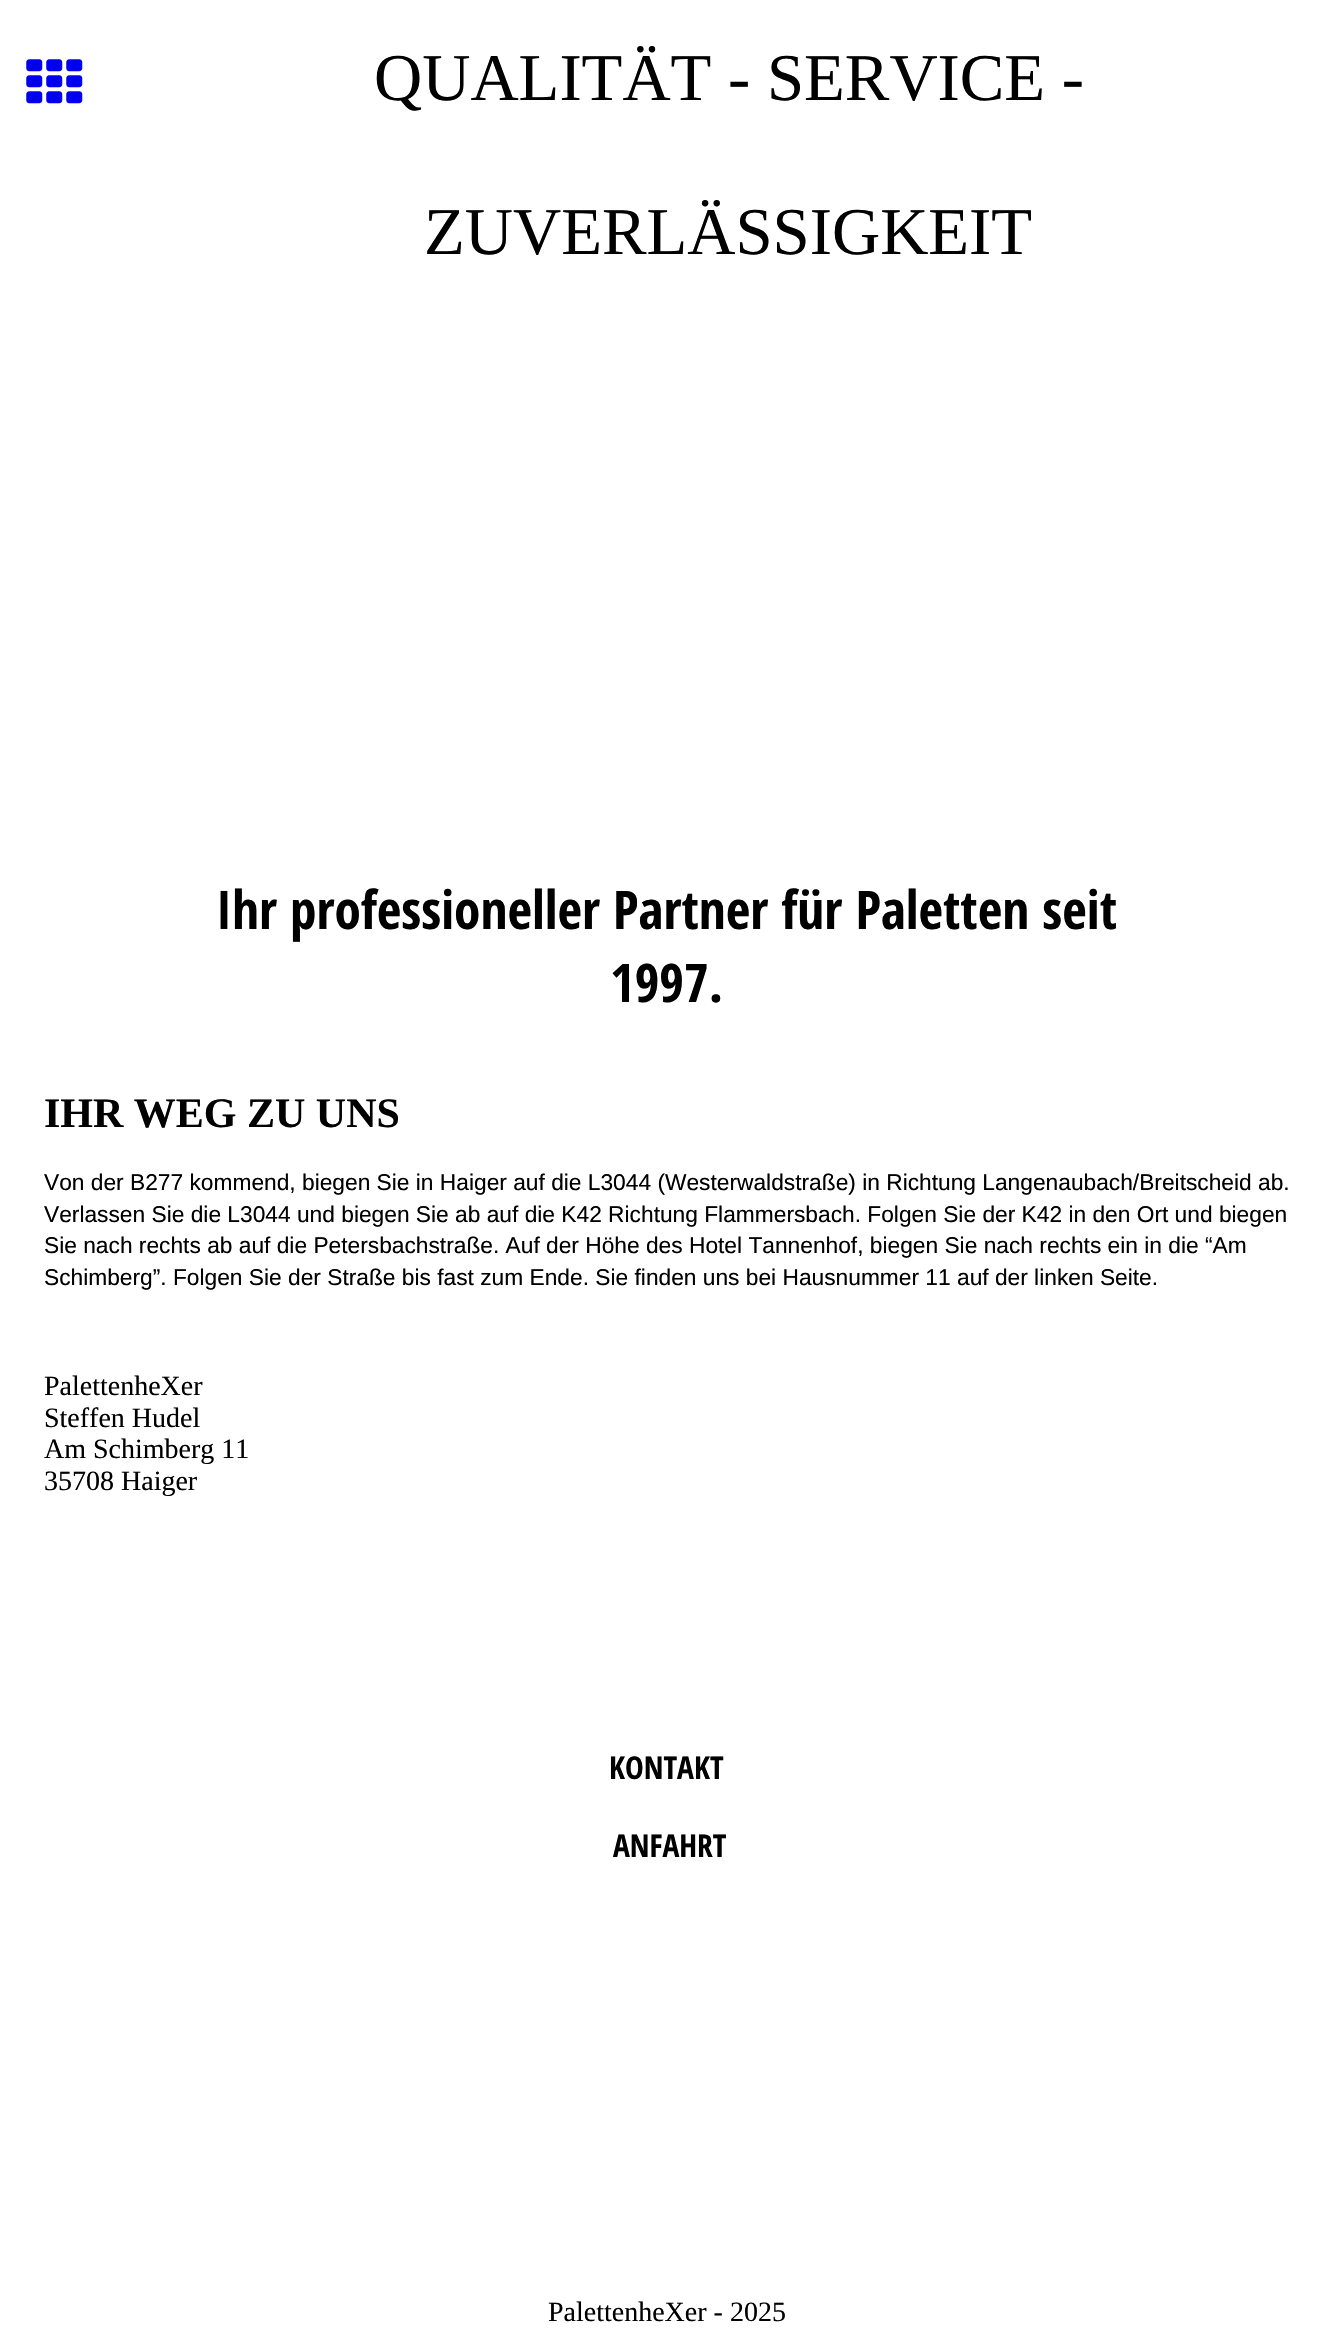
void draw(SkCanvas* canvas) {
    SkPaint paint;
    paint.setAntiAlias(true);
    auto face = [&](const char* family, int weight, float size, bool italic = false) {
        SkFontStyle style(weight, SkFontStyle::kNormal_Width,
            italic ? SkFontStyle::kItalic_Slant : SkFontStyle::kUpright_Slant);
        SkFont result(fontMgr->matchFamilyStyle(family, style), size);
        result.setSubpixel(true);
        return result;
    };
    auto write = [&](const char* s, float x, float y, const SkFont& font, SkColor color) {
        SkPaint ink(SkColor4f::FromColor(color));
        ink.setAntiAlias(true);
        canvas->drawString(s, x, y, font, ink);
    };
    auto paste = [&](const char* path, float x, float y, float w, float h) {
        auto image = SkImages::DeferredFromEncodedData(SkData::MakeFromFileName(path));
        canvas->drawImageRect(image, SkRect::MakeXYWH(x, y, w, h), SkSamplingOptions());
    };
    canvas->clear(SK_ColorWHITE);
    paste("pic1.png", 26, 59, 57, 45);
    auto kFont1 = face("Liberation Serif", 400, 66.75f);
    write("QUALITÄT - SERVICE -", 374, 100, kFont1, SK_ColorBLACK);
    write("ZUVERLÄSSIGKEIT", 424, 254, kFont1, SK_ColorBLACK);
    auto kFont2 = face("Open Sans Condensed", 700, 53.3f);
    write("Ihr professioneller Partner für Paletten seit", 216, 929, kFont2, SK_ColorBLACK);
    write("1997.", 610, 1002, kFont2, SK_ColorBLACK);
    auto kFont3 = face("Liberation Serif", 700, 42);
    write("IHR WEG ZU UNS", 44, 1127, kFont3, SK_ColorBLACK);
    auto kFont4 = face("Liberation Sans", 400, 22.75f);
    write("Von der B277 kommend, biegen Sie in Haiger auf die L3044 (Westerwaldstraße) in Richtung Langenaubach/Breitscheid ab.", 44, 1190, kFont4, SK_ColorBLACK);
    write("Verlassen Sie die L3044 und biegen Sie ab auf die K42 Richtung Flammersbach. Folgen Sie der K42 in den Ort und biegen", 44, 1222, kFont4, SK_ColorBLACK);
    write("Sie nach rechts ab auf die Petersbachstraße. Auf der Höhe des Hotel Tannenhof, biegen Sie nach rechts ein in die “Am", 44, 1253, kFont4, SK_ColorBLACK);
    write("Schimberg”. Folgen Sie der Straße bis fast zum Ende. Sie finden uns bei Hausnummer 11 auf der linken Seite.", 44, 1285, kFont4, SK_ColorBLACK);
    auto kFont5 = face("Liberation Serif", 400, 28);
    write("PalettenheXer", 44, 1395, kFont5, SK_ColorBLACK);
    write("Steffen Hudel", 44, 1427, kFont5, SK_ColorBLACK);
    write("Am Schimberg 11", 44, 1458, kFont5, SK_ColorBLACK);
    write("35708 Haiger", 44, 1490, kFont5, SK_ColorBLACK);
    auto kFont6 = face("Open Sans Condensed", 700, 31.5f);
    write("KONTAKT", 609, 1779, kFont6, SK_ColorBLACK);
    write("ANFAHRT", 613, 1857, kFont6, SK_ColorBLACK);
    write("PalettenheXer - 2025", 548, 2321, kFont5, SK_ColorBLACK);
}
